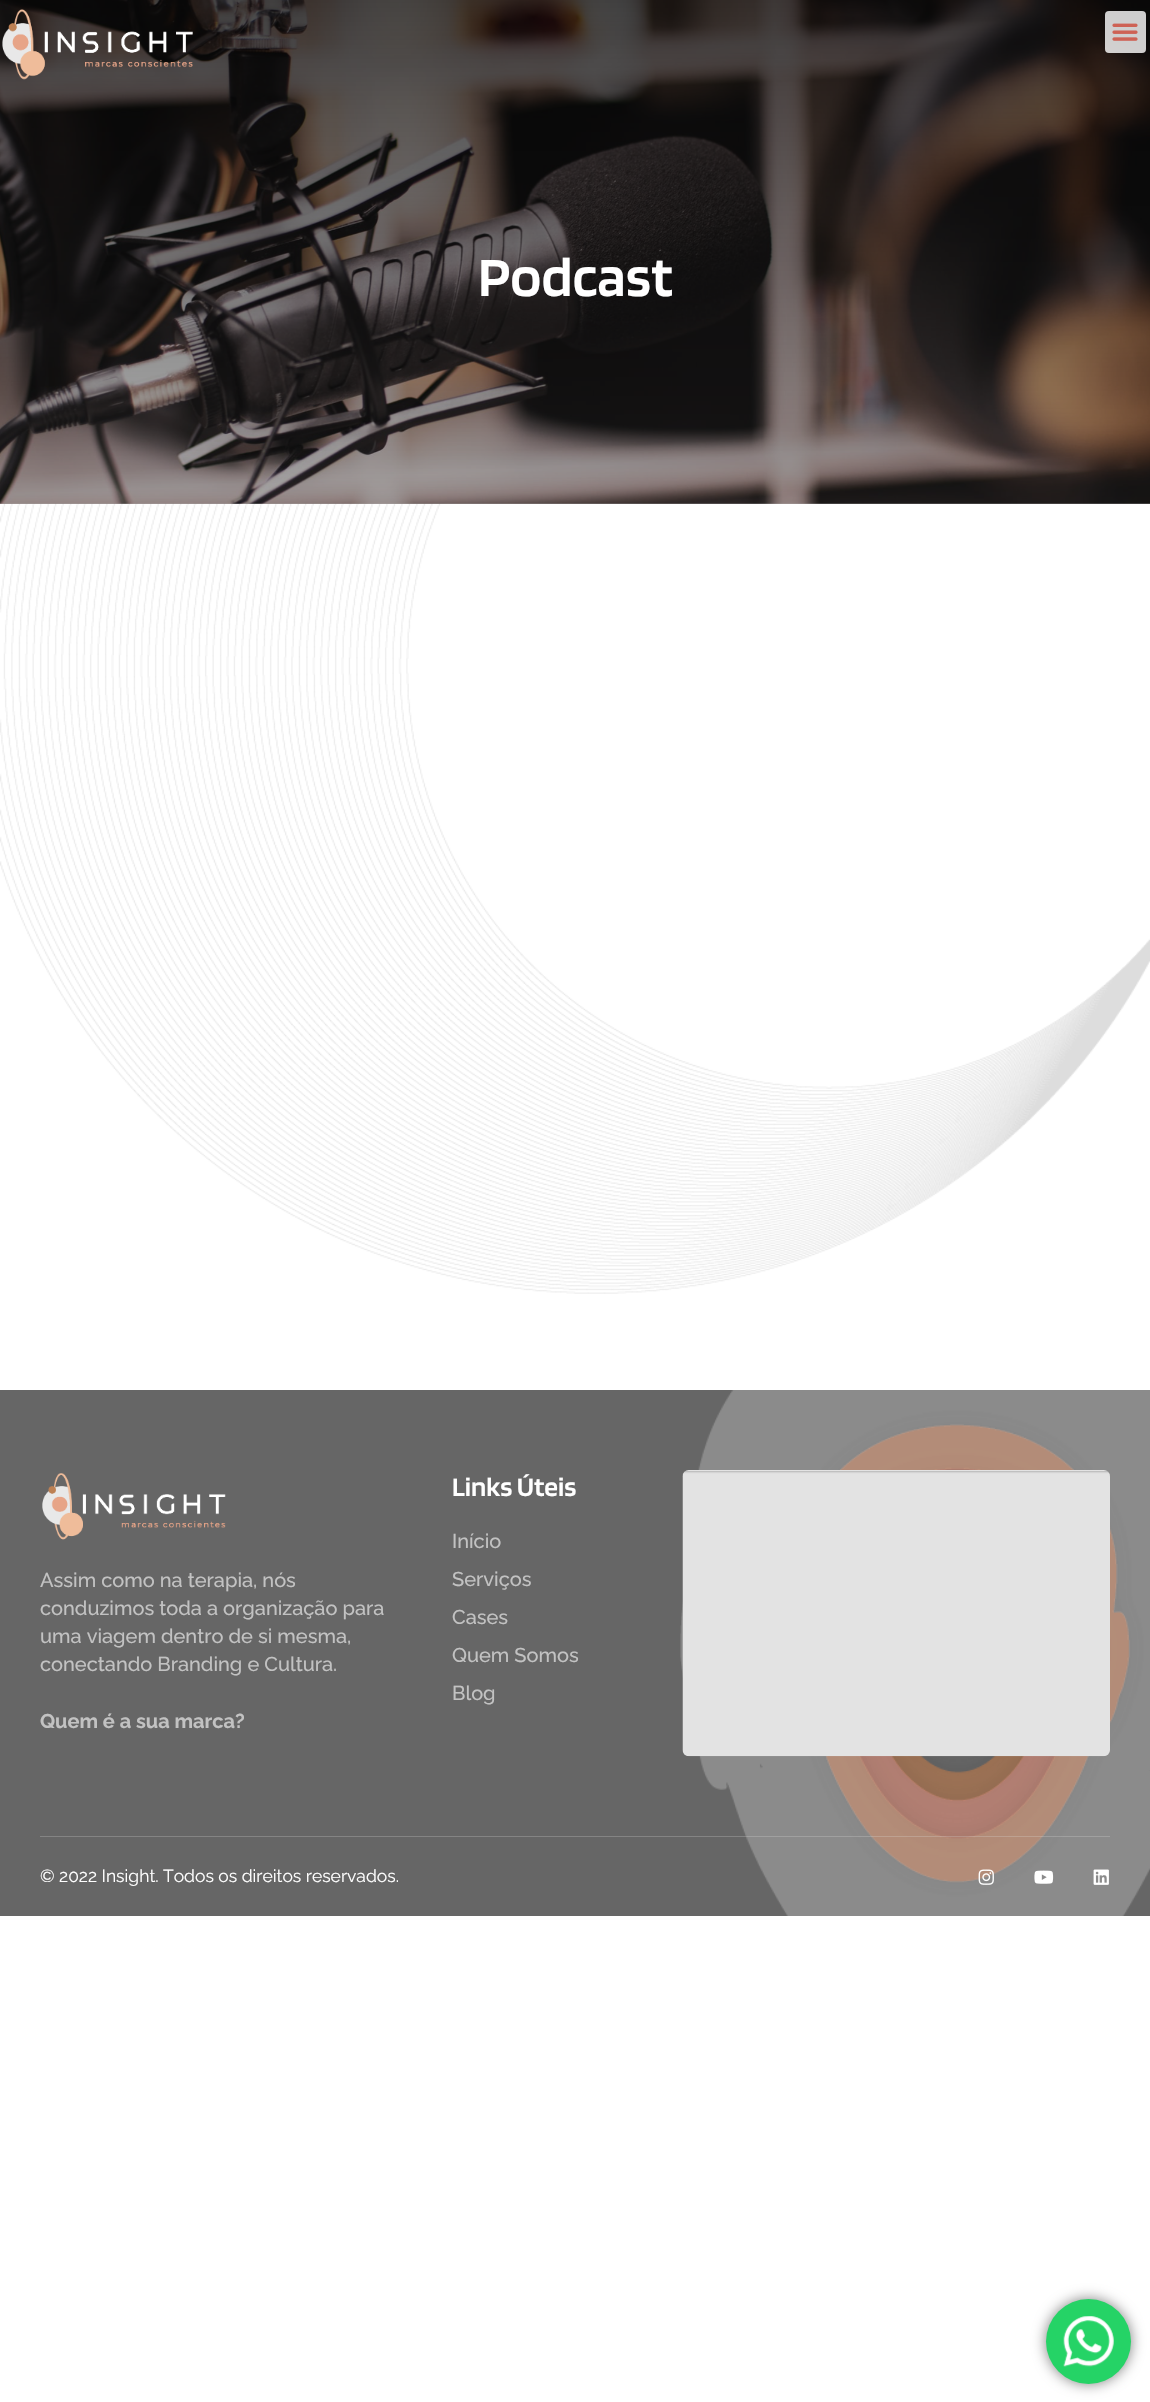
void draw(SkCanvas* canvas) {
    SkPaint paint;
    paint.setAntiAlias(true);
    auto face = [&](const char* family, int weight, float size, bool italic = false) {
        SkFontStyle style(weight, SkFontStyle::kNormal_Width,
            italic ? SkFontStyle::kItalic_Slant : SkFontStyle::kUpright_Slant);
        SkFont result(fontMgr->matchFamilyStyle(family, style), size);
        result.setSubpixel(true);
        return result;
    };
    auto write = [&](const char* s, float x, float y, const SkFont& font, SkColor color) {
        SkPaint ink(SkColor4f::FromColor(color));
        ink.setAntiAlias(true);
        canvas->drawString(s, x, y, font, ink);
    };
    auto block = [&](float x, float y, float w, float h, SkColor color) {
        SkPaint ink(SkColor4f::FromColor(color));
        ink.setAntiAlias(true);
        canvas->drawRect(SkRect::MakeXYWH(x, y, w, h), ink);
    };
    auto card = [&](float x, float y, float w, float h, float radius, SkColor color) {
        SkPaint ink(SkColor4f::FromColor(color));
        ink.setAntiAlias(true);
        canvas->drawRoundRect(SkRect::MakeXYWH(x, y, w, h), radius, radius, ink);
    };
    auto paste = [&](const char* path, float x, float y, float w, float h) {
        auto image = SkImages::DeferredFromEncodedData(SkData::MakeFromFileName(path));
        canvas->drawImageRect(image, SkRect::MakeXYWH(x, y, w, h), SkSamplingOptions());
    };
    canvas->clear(SK_ColorWHITE);
    paste("pic1.png", 0, 503, 1150, 791);
    paste("pic4.png", 0, 0, 1150, 504);
    {
        const SkColor colors[] = {SkColorSetARGB(74, 0, 0, 0), SkColorSetARGB(191, 0, 0, 0)};
        const float stops[] = {0, 1};
        const SkPoint ends[] = {{575, 504}, {575, -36}};
        paint.setShader(SkGradientShader::MakeLinear(ends, colors, stops, 2, SkTileMode::kClamp));
        paint.setAlpha(255);
    }
    canvas->drawRect(SkRect::MakeXYWH(0, 0, 1150, 504), paint);
    paste("pic2.png", 2, 9, 191, 71);
    card(1105, 11, 41, 42, 4, SkColorSetARGB(204, 255, 255, 255));
    paste("pic3.png", 1112, 23, 26, 18);
    auto kFont1 = face("Blinker", 600, 57.5f);
    write("Podcast", 478, 296, kFont1, SK_ColorWHITE);
    block(0, 1390, 1150, 526, SkColorSetRGB(102, 102, 102));
    paste("pic5.png", 680, 1390, 470, 526);
    block(40, 1836, 1070, 1, SkColorSetARGB(61, 224, 224, 224));
    paste("pic6.png", 42, 1473, 184, 67);
    auto kFont2 = face("Raleway", 500, 20);
    write("Assim como na terapia, nós", 40, 1587, kFont2, SkColorSetRGB(194, 194, 194));
    write("conduzimos toda a organização para", 40, 1615, kFont2, SkColorSetRGB(194, 194, 194));
    write("uma viagem dentro de si mesma,", 40, 1643, kFont2, SkColorSetRGB(194, 194, 194));
    write("conectando Branding e Cultura.", 40, 1671, kFont2, SkColorSetRGB(194, 194, 194));
    auto kFont3 = face("Raleway", 700, 20);
    write("Quem é a sua marca?", 40, 1728, kFont3, SkColorSetRGB(194, 194, 194));
    auto kFont4 = face("Blinker", 600, 27.5f);
    write("Links Úteis", 452, 1496, kFont4, SK_ColorWHITE);
    write("Início", 452, 1548, kFont2, SkColorSetRGB(194, 194, 194));
    write("Serviços", 452, 1586, kFont2, SkColorSetRGB(194, 194, 194));
    write("Cases", 452, 1624, kFont2, SkColorSetRGB(194, 194, 194));
    write("Quem Somos", 452, 1662, kFont2, SkColorSetRGB(194, 194, 194));
    write("Blog", 452, 1700, kFont2, SkColorSetRGB(194, 194, 194));
    paste("pic7.png", 682, 1470, 428, 287);
    auto kFont5 = face("Raleway", 400, 17.5f);
    write("© 2022 Insight. Todos os direitos reservados.", 40, 1882, kFont5, SK_ColorWHITE);
    paste("pic8.png", 978, 1869, 16, 16);
    paste("pic9.png", 1034, 1870, 20, 14);
    paste("pic10.png", 1093, 1869, 16, 16);
    paint.setShader(nullptr);
    paint.setColor(SkColorSetARGB(128, 0, 0, 0));
    paint.setMaskFilter(SkMaskFilter::MakeBlur(kNormal_SkBlurStyle, 7));
    canvas->drawRoundRect(SkRect::MakeXYWH(1046, 2299, 85, 85), 42.5f, 42.5f, paint);
    paint.setMaskFilter(nullptr);
    paint.setColor(SkColorSetRGB(37, 211, 102));
    canvas->drawCircle(1088.5f, 2341.5f, 42.5f, paint);
    paste("pic11.png", 1063, 2316, 51, 51);
}
